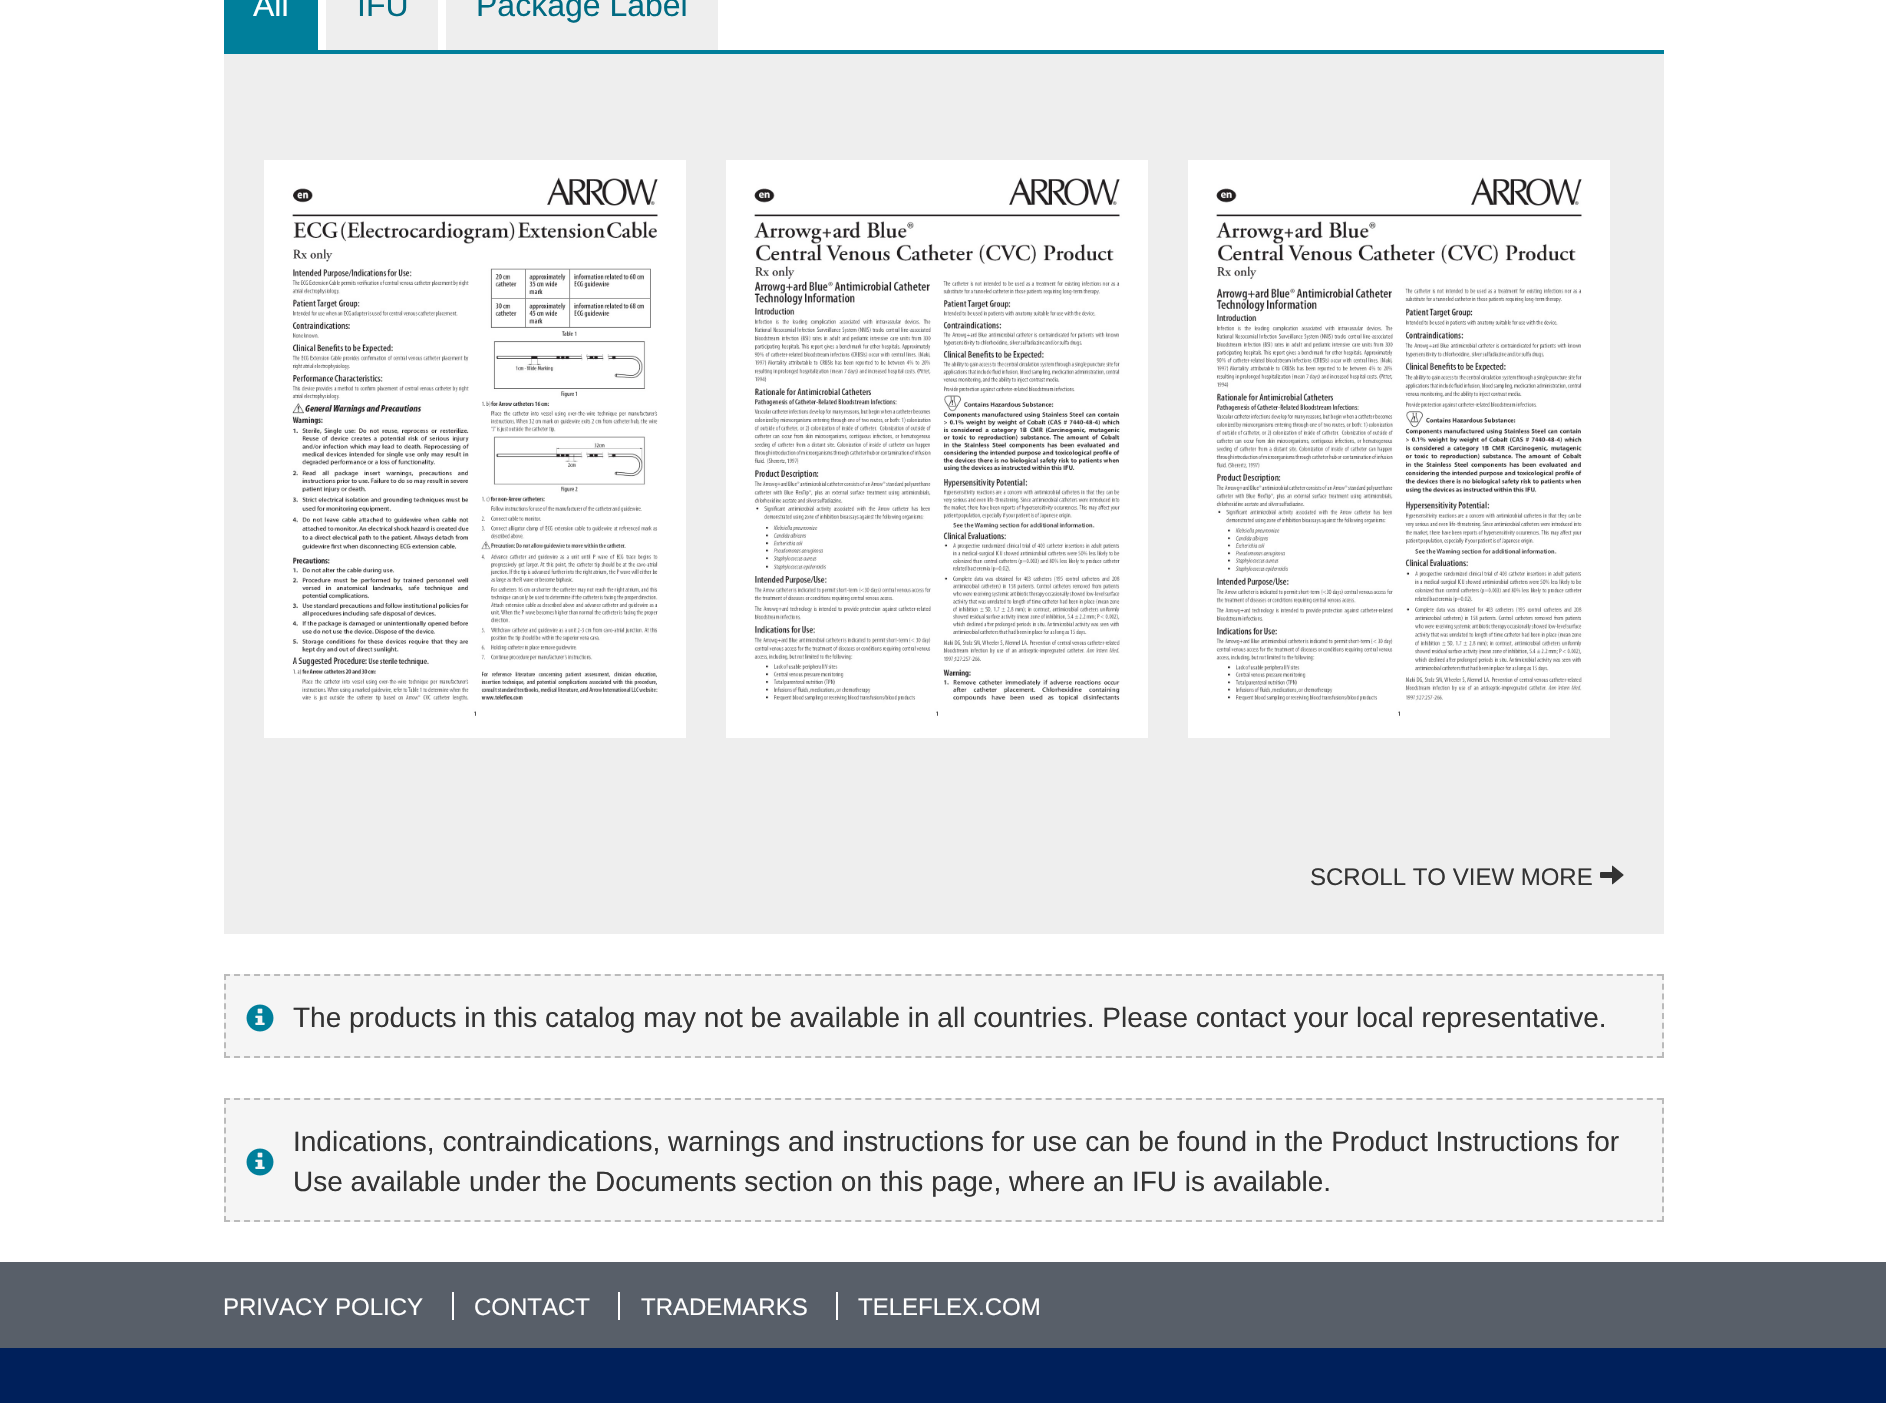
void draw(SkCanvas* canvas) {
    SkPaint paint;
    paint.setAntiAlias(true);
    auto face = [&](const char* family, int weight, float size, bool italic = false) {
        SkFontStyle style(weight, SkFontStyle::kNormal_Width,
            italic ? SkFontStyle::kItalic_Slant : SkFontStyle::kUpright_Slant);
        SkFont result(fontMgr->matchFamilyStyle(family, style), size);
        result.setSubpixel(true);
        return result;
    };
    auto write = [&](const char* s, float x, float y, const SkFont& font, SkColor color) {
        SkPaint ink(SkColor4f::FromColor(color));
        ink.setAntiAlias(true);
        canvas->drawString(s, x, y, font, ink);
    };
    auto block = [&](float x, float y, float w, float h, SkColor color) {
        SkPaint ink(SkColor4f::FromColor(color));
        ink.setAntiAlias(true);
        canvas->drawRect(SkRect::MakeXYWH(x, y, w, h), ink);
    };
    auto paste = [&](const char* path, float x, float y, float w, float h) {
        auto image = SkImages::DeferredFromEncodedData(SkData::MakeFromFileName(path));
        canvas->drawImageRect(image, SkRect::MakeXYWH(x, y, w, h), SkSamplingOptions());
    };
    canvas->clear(SK_ColorWHITE);
    block(224, 0, 94, 50, SkColorSetRGB(0, 127, 155));
    auto kFont1 = face("Liberation Sans", 400, 32);
    write("All", 253, 16, kFont1, SK_ColorWHITE);
    block(326, 0, 112, 50, SkColorSetRGB(238, 238, 238));
    write("IFU", 357, 16, kFont1, SkColorSetRGB(0, 106, 130));
    block(446, 0, 272, 50, SkColorSetRGB(238, 238, 238));
    write("Package Label", 476, 16, kFont1, SkColorSetRGB(0, 106, 130));
    block(224, 54, 1440, 880, SkColorSetRGB(238, 238, 238));
    block(224, 50, 1440, 4, SkColorSetRGB(0, 127, 155));
    paste("pic1.png", 264, 160, 422, 578);
    paste("pic2.png", 726, 160, 422, 578);
    paste("pic3.png", 1188, 160, 422, 578);
    auto kFont2 = face("Liberation Sans", 400, 24);
    write("SCROLL TO VIEW MORE", 1310, 885, kFont2, SkColorSetRGB(51, 51, 51));
    paste("pic4.png", 1600, 865, 24, 20);
    block(224, 974, 1440, 84, SkColorSetRGB(245, 245, 245));
    paint.setStyle(SkPaint::kStroke_Style);
    paint.setStrokeWidth(2);
    paint.setColor(SkColorSetRGB(187, 187, 187));
    paint.setPathEffect(SkDashPathEffect::Make({{6, 4.02f}}, 0));
    canvas->drawPath(SkPathBuilder().moveTo(224, 975).lineTo(1664, 975).detach(), paint);
    paint.setPathEffect(nullptr);
    paint.setPathEffect(SkDashPathEffect::Make({{6, 3.76f}}, 0));
    canvas->drawPath(SkPathBuilder().moveTo(1663, 974).lineTo(1663, 1058).detach(), paint);
    paint.setPathEffect(nullptr);
    paint.setPathEffect(SkDashPathEffect::Make({{6, 4.02f}}, 0));
    canvas->drawPath(SkPathBuilder().moveTo(224, 1057).lineTo(1664, 1057).detach(), paint);
    paint.setPathEffect(nullptr);
    paint.setPathEffect(SkDashPathEffect::Make({{6, 3.76f}}, 0));
    canvas->drawPath(SkPathBuilder().moveTo(225, 974).lineTo(225, 1058).detach(), paint);
    paint.setPathEffect(nullptr);
    paste("pic5.png", 246, 1004, 28, 28);
    auto kFont3 = face("Liberation Sans", 400, 28);
    write("The products in this catalog may not be available in all countries. Please contact your local representative.", 293, 1027, kFont3, SkColorSetRGB(51, 51, 51));
    block(224, 1098, 1440, 124, SkColorSetRGB(245, 245, 245));
    paint.setPathEffect(SkDashPathEffect::Make({{6, 4.02f}}, 0));
    canvas->drawPath(SkPathBuilder().moveTo(224, 1099).lineTo(1664, 1099).detach(), paint);
    paint.setPathEffect(nullptr);
    paint.setPathEffect(SkDashPathEffect::Make({{6, 3.84f}}, 0));
    canvas->drawPath(SkPathBuilder().moveTo(1663, 1098).lineTo(1663, 1222).detach(), paint);
    paint.setPathEffect(nullptr);
    paint.setPathEffect(SkDashPathEffect::Make({{6, 4.02f}}, 0));
    canvas->drawPath(SkPathBuilder().moveTo(224, 1221).lineTo(1664, 1221).detach(), paint);
    paint.setPathEffect(nullptr);
    paint.setPathEffect(SkDashPathEffect::Make({{6, 3.84f}}, 0));
    canvas->drawPath(SkPathBuilder().moveTo(225, 1098).lineTo(225, 1222).detach(), paint);
    paint.setPathEffect(nullptr);
    write("Indications, contraindications, warnings and instructions for use can be found in the Product Instructions for", 293, 1151, kFont3, SkColorSetRGB(51, 51, 51));
    paste("pic5.png", 246, 1148, 28, 28);
    write("Use available under the Documents section on this page, where an IFU is available.", 293, 1191, kFont3, SkColorSetRGB(51, 51, 51));
    block(0, 1262, 1886, 86, SkColorSetRGB(88, 95, 105));
    write("PRIVACY POLICY", 223, 1315, kFont2, SK_ColorWHITE);
    write("CONTACT", 474, 1315, kFont2, SK_ColorWHITE);
    block(452, 1292, 2, 28, SK_ColorWHITE);
    write("TRADEMARKS", 641, 1315, kFont2, SK_ColorWHITE);
    block(618, 1292, 2, 28, SK_ColorWHITE);
    write("TELEFLEX.COM", 858, 1315, kFont2, SK_ColorWHITE);
    block(836, 1292, 2, 28, SK_ColorWHITE);
    block(0, 1348, 1886, 55, SkColorSetRGB(0, 32, 91));
}
